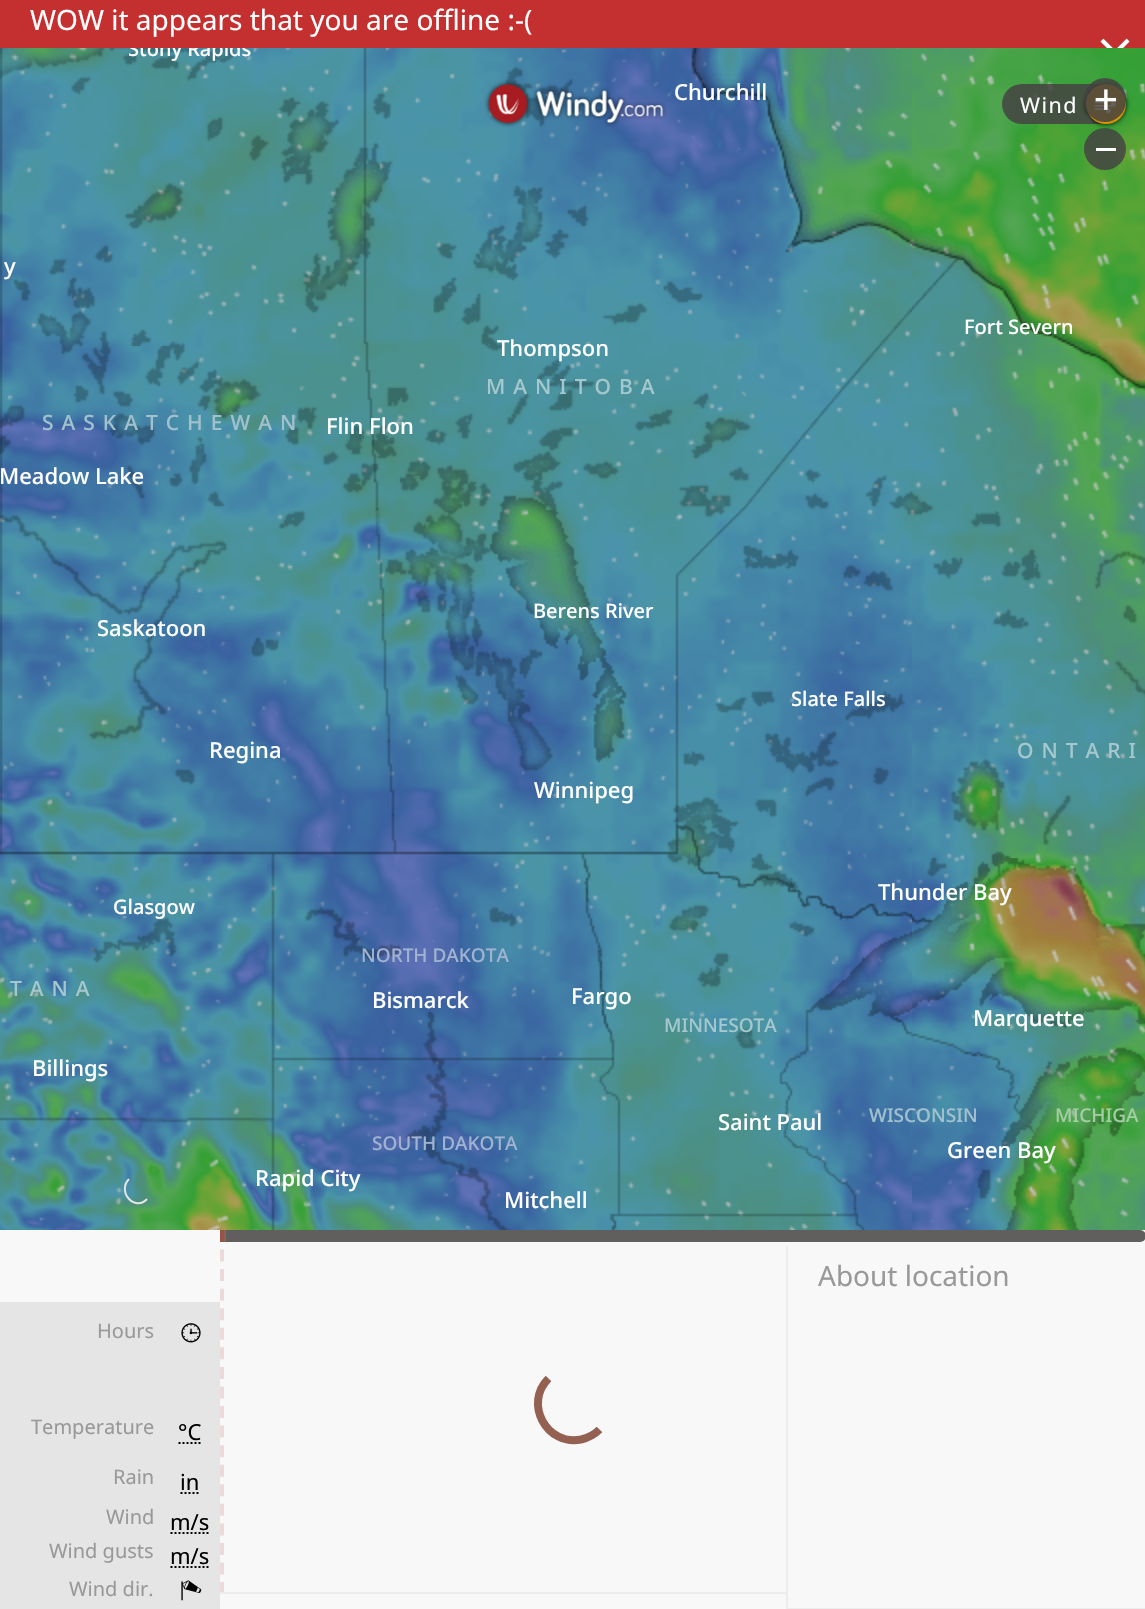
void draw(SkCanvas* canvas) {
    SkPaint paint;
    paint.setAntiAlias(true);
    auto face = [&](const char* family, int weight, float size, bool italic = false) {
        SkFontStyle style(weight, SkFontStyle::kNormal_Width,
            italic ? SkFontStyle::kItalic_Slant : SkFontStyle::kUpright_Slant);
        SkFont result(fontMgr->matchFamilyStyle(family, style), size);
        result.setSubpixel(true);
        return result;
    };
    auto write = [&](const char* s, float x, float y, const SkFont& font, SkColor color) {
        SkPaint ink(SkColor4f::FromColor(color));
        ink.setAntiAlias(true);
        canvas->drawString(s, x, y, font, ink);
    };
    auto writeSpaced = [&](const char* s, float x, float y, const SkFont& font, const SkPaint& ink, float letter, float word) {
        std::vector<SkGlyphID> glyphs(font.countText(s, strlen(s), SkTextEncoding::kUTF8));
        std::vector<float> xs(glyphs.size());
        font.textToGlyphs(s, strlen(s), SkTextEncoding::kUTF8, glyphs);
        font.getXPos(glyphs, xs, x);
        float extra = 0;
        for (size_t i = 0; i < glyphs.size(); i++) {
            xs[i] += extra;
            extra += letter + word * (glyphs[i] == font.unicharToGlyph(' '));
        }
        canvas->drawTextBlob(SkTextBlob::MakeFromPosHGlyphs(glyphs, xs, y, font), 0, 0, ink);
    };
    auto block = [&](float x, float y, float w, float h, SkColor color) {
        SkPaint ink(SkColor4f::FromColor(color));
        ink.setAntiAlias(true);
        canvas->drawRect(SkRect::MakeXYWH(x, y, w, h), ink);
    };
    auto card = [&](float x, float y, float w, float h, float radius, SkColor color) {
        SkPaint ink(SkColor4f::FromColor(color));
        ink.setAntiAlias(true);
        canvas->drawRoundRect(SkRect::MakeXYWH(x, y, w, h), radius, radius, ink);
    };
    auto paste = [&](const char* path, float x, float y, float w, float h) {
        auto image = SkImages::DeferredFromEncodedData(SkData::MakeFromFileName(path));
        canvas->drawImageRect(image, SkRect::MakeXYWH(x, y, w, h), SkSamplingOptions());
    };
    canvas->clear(SK_ColorWHITE);
    paste("pic2.png", 0, 48, 400, 298);
    paste("pic3.png", 400, 48, 512, 298);
    paste("pic4.png", 912, 48, 233, 298);
    paste("pic5.png", 0, 346, 400, 512);
    paste("pic6.png", 400, 346, 512, 512);
    paste("pic7.png", 912, 346, 233, 512);
    paste("pic8.png", 0, 858, 400, 372);
    paste("pic9.png", 400, 858, 512, 372);
    paste("pic10.png", 912, 858, 233, 372);
    paste("pic11.png", 0, 48, 1145, 1182);
    paste("pic12.png", 0, 48, 393, 298);
    auto kFont1 = face("Noto Sans", 500, 20);
    write("Stony Rapids", 128, 56, kFont1, SK_ColorWHITE);
    block(0, 0, 1145, 48, SkColorSetRGB(196, 47, 47));
    auto kFont2 = face("Noto Sans", 400, 28);
    write("WOW it appears that you are offline :-(", 30, 30, kFont2, SK_ColorWHITE);
    paste("pic1.png", 1100, 38, 30, 10);
    auto kFont3 = face("Noto Sans", 500, 22);
    write("y", 4, 274, kFont3, SK_ColorWHITE);
    paste("pic13.png", 433, 48, 479, 298);
    write("Churchill", 674, 100, kFont3, SK_ColorWHITE);
    paste("pic14.png", 912, 231, 185, 115);
    write("Fort Severn", 964, 334, kFont1, SK_ColorWHITE);
    paste("pic15.png", 0, 346, 400, 512);
    auto kFont4 = face("Noto Sans", 500, 21);
    paint.setColor(SkColorSetRGB(162, 193, 206));
    writeSpaced("SASKATCHEWAN", 42, 430, kFont4, paint, 8, 0);
    paste("pic16.png", 400, 346, 512, 512);
    write("Flin Flon", 326, 434, kFont3, SK_ColorWHITE);
    write("Meadow Lake", -1, 484, kFont3, SK_ColorWHITE);
    write("Saskatoon", 97, 636, kFont3, SK_ColorWHITE);
    write("Regina", 209, 758, kFont3, SK_ColorWHITE);
    write("Thompson", 497, 356, kFont3, SK_ColorWHITE);
    paint.setColor(SkColorSetRGB(164, 200, 205));
    writeSpaced("MANITOBA", 486, 394, kFont4, paint, 8, 0);
    write("Berens River", 533, 618, kFont1, SK_ColorWHITE);
    write("Slate Falls", 791, 706, kFont1, SK_ColorWHITE);
    write("Winnipeg", 534, 798, kFont3, SK_ColorWHITE);
    paste("pic17.png", 912, 346, 233, 512);
    writeSpaced("ONTARI", 1017, 758, kFont4, paint, 8, 0);
    paste("pic18.png", 0, 858, 400, 372);
    write("Glasgow", 113, 914, kFont1, SK_ColorWHITE);
    writeSpaced("TANA", 10, 996, kFont4, paint, 8, 0);
    write("Billings", 32, 1076, kFont3, SK_ColorWHITE);
    write("Rapid City", 255, 1186, kFont3, SK_ColorWHITE);
    paste("pic19.png", 400, 858, 512, 372);
    auto kFont5 = face("Noto Sans", 500, 19);
    write("NORTH DAKOTA", 361, 962, kFont5, SkColorSetRGB(161, 179, 209));
    write("Bismarck", 372, 1008, kFont3, SK_ColorWHITE);
    write("Fargo", 571, 1004, kFont3, SK_ColorWHITE);
    write("MINNESOTA", 664, 1032, kFont5, SkColorSetRGB(164, 200, 205));
    write("Saint Paul", 718, 1130, kFont3, SK_ColorWHITE);
    write("SOUTH DAKOTA", 372, 1150, kFont5, SkColorSetRGB(161, 179, 209));
    write("Mitchell", 504, 1208, kFont3, SK_ColorWHITE);
    paste("pic20.png", 912, 858, 233, 372);
    write("Thunder Bay", 878, 900, kFont3, SK_ColorWHITE);
    write("Marquette", 973, 1026, kFont3, SK_ColorWHITE);
    write("WISCONSIN", 869, 1122, kFont5, SkColorSetRGB(162, 193, 206));
    write("MICHIGA", 1055, 1122, kFont5, SkColorSetRGB(164, 205, 164));
    write("Green Bay", 947, 1158, kFont3, SK_ColorWHITE);
    paste("pic21.png", 484, 80, 47, 47);
    paste("pic22.png", 533, 87, 134, 40);
    card(1002, 84, 124, 40, 20, SkColorSetARGB(214, 68, 65, 65));
    auto kFont6 = face("Noto Sans", 400, 21.5f);
    paint.setColor(SK_ColorWHITE);
    writeSpaced("Wind", 1020, 113, kFont6, paint, 1.5f, 0);
    paint.setColor(SK_ColorBLACK);
    paint.setMaskFilter(SkMaskFilter::MakeBlur(kNormal_SkBlurStyle, 2.5f));
    canvas->drawRoundRect(SkRect::MakeXYWH(1086, 84, 40, 40), 20, 20, paint);
    paint.setMaskFilter(nullptr);
    paint.setColor(SkColorSetRGB(212, 149, 0));
    canvas->drawCircle(1106, 104, 20, paint);
    paste("pic23.png", 1094, 101, 22, 13);
    card(1084, 78, 42, 44, 21, SkColorSetARGB(214, 68, 65, 65));
    paste("pic24.png", 1095, 89, 22, 21);
    paint.setColor(SkColorSetARGB(214, 68, 65, 65));
    canvas->drawCircle(1105, 149, 21, paint);
    block(1096, 148, 20, 3, SK_ColorWHITE);
    paint.setStyle(SkPaint::kStroke_Style);
    paint.setStrokeWidth(2);
    paint.setColor(SkColorSetRGB(229, 229, 229));
    canvas->drawPath(SkPathBuilder().moveTo(147, 1199).cubicTo(135, 1212, 116.5f, 1192, 129, 1179).detach(), paint);
    block(0, 1230, 1145, 379, SkColorSetRGB(248, 248, 248));
    card(220, 1230, 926, 12, 6, SkColorSetRGB(97, 94, 94));
    block(220, 1230, 6, 12, SkColorSetRGB(148, 96, 81));
    paint.setStrokeWidth(4);
    paint.setColor(SkColorSetARGB(31, 157, 3, 0));
    paint.setPathEffect(SkDashPathEffect::Make({{12, 7.56f}}, 0));
    canvas->drawPath(SkPathBuilder().moveTo(222, 1230).lineTo(222, 1594).detach(), paint);
    paint.setPathEffect(nullptr);
    block(786, 1608, 359, 1, SkColorSetRGB(237, 237, 237));
    block(786, 1246, 2, 363, SkColorSetRGB(237, 237, 237));
    block(220, 1592, 568, 2, SkColorSetRGB(237, 237, 237));
    write("About location", 818, 1286, kFont2, SkColorSetRGB(153, 153, 153));
    block(0, 1302, 220, 307, SkColorSetRGB(229, 229, 229));
    auto kFont7 = face("Noto Sans", 400, 20);
    write("Hours", 97, 1338, kFont7, SkColorSetRGB(153, 153, 153));
    paste("pic25.png", 181, 1323, 20, 20);
    write("Temperature", 31, 1434, kFont7, SkColorSetRGB(153, 153, 153));
    auto kFont8 = face("Noto Sans", 400, 22);
    write("°C", 178, 1440, kFont8, SK_ColorBLACK);
    paint.setStrokeWidth(2);
    paint.setColor(SK_ColorBLACK);
    paint.setPathEffect(SkDashPathEffect::Make({{2, 2}}, 0));
    canvas->drawPath(SkPathBuilder().moveTo(178.5f, 1443).lineTo(201.5f, 1443).detach(), paint);
    paint.setPathEffect(nullptr);
    write("Rain", 113, 1484, kFont7, SkColorSetRGB(153, 153, 153));
    write("in", 180, 1490, kFont8, SK_ColorBLACK);
    paint.setPathEffect(SkDashPathEffect::Make({{2, 2}}, 0));
    canvas->drawPath(SkPathBuilder().moveTo(180.5f, 1493).lineTo(199.5f, 1493).detach(), paint);
    paint.setPathEffect(nullptr);
    write("Wind", 106, 1524, kFont7, SkColorSetRGB(153, 153, 153));
    write("m/s", 170, 1530, kFont8, SK_ColorBLACK);
    paint.setPathEffect(SkDashPathEffect::Make({{2, 2}}, 0));
    canvas->drawPath(SkPathBuilder().moveTo(170.5f, 1533).lineTo(209.5f, 1533).detach(), paint);
    paint.setPathEffect(nullptr);
    write("Wind gusts", 49, 1558, kFont7, SkColorSetRGB(153, 153, 153));
    write("m/s", 170, 1564, kFont8, SK_ColorBLACK);
    paint.setPathEffect(SkDashPathEffect::Make({{2, 2}}, 0));
    canvas->drawPath(SkPathBuilder().moveTo(170.5f, 1567).lineTo(209.5f, 1567).detach(), paint);
    paint.setPathEffect(nullptr);
    write("Wind dir.", 69, 1596, kFont7, SkColorSetRGB(153, 153, 153));
    paste("pic26.png", 181, 1580, 21, 21);
    paint.setStrokeWidth(8);
    paint.setColor(SkColorSetRGB(148, 96, 81));
    canvas->drawPath(SkPathBuilder().moveTo(599.5f, 1429.5f).cubicTo(594.5f, 1434.5f, 588, 1438, 581, 1439.5f).cubicTo(546.5f, 1446, 523.5f, 1403.5f, 548.5f, 1378.5f).detach(), paint);
}
